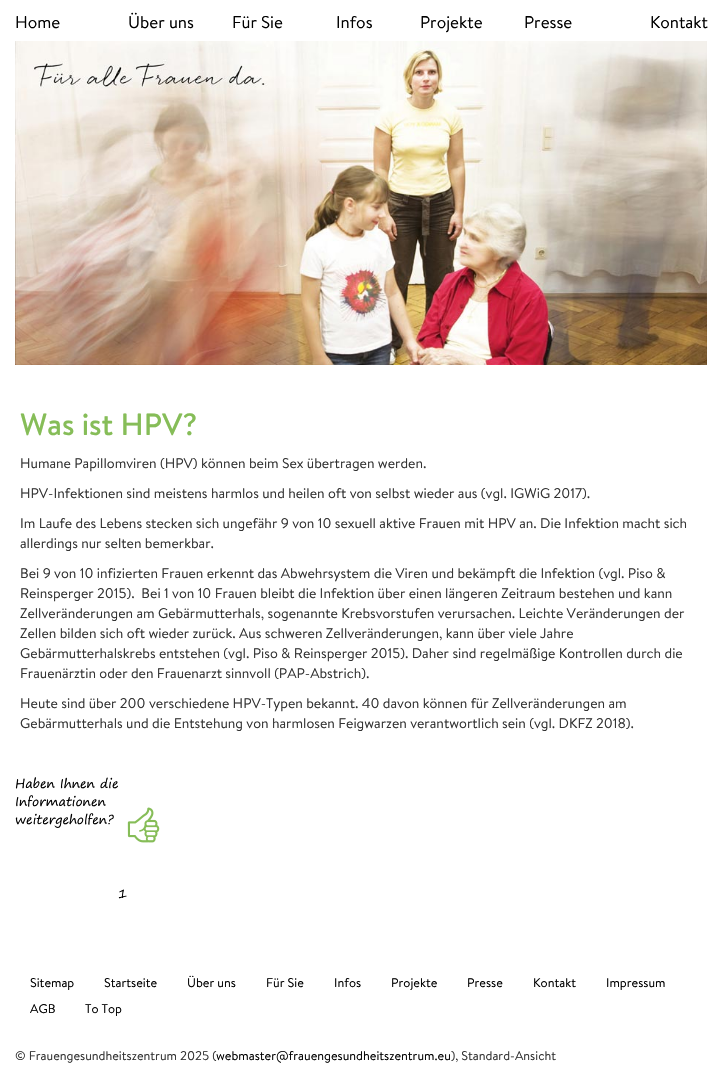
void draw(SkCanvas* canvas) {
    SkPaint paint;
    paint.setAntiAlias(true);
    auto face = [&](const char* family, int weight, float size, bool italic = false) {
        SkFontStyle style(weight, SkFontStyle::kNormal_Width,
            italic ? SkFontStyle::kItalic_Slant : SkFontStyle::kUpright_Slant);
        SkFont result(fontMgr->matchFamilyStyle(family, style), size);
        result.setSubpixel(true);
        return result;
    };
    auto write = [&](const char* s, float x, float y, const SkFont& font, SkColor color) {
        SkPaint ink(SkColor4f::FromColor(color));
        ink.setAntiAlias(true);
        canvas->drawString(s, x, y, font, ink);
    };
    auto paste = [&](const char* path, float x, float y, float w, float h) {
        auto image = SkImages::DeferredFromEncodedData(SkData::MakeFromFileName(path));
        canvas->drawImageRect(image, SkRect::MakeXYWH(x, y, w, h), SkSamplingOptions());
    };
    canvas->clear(SK_ColorWHITE);
    auto kFont1 = face("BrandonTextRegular", 400, 17);
    write("Home", 15, 28, kFont1, SK_ColorBLACK);
    write("Über uns", 128, 28, kFont1, SK_ColorBLACK);
    write("Für Sie", 232, 28, kFont1, SK_ColorBLACK);
    write("Infos", 336, 28, kFont1, SK_ColorBLACK);
    write("Projekte", 420, 28, kFont1, SK_ColorBLACK);
    write("Presse", 524, 28, kFont1, SK_ColorBLACK);
    write("Kontakt", 650, 28, kFont1, SK_ColorBLACK);
    paste("pic1.png", 15, 41, 692, 324);
    auto kFont2 = face("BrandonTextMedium", 500, 30.75f);
    write("Was ist HPV?", 20, 435, kFont2, SkColorSetRGB(134, 189, 88));
    auto kFont3 = face("BrandonTextRegular", 400, 14);
    write("Humane Papillomviren (HPV) können beim Sex übertragen werden.", 20, 468, kFont3, SkColorSetRGB(51, 51, 51));
    write("HPV-Infektionen sind meistens harmlos und heilen oft von selbst wieder aus (vgl. IGWiG 2017).", 20, 498, kFont3, SkColorSetRGB(51, 51, 51));
    write("Im Laufe des Lebens stecken sich ungefähr 9 von 10 sexuell aktive Frauen mit HPV an. Die Infektion macht sich", 20, 528, kFont3, SkColorSetRGB(51, 51, 51));
    write("allerdings nur selten bemerkbar.", 20, 548, kFont3, SkColorSetRGB(51, 51, 51));
    write("Bei 9 von 10 infizierten Frauen erkennt das Abwehrsystem die Viren und bekämpft die Infektion (vgl. Piso &", 20, 578, kFont3, SkColorSetRGB(51, 51, 51));
    write("Reinsperger 2015).  Bei 1 von 10 Frauen bleibt die Infektion über einen längeren Zeitraum bestehen und kann", 20, 598, kFont3, SkColorSetRGB(51, 51, 51));
    write("Zellveränderungen am Gebärmutterhals, sogenannte Krebsvorstufen verursachen. Leichte Veränderungen der", 20, 618, kFont3, SkColorSetRGB(51, 51, 51));
    write("Zellen bilden sich oft wieder zurück. Aus schweren Zellveränderungen, kann über viele Jahre", 20, 638, kFont3, SkColorSetRGB(51, 51, 51));
    write("Gebärmutterhalskrebs entstehen (vgl. Piso & Reinsperger 2015). Daher sind regelmäßige Kontrollen durch die", 20, 658, kFont3, SkColorSetRGB(51, 51, 51));
    write("Frauenärztin oder den Frauenarzt sinnvoll (PAP-Abstrich).", 20, 678, kFont3, SkColorSetRGB(51, 51, 51));
    write("Heute sind über 200 verschiedene HPV-Typen bekannt. 40 davon können für Zellveränderungen am", 20, 708, kFont3, SkColorSetRGB(51, 51, 51));
    write("Gebärmutterhals und die Entstehung von harmlosen Feigwarzen verantwortlich sein (vgl. DKFZ 2018).", 20, 728, kFont3, SkColorSetRGB(51, 51, 51));
    auto kFont4 = face("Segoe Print", 400, 12.6f);
    write("Haben Ihnen die", 15, 788, kFont4, SK_ColorBLACK);
    write("Informationen", 15, 806, kFont4, SK_ColorBLACK);
    write("weitergeholfen?", 15, 824, kFont4, SK_ColorBLACK);
    paste("pic2.png", 127, 807, 33, 36);
    write("1", 118, 898, kFont4, SK_ColorBLACK);
    auto kFont5 = face("BrandonTextRegular", 400, 12.6f);
    write("Sitemap", 30, 987, kFont5, SK_ColorBLACK);
    write("Startseite", 104, 987, kFont5, SK_ColorBLACK);
    write("Über uns", 187, 987, kFont5, SK_ColorBLACK);
    write("Für Sie", 266, 987, kFont5, SK_ColorBLACK);
    write("Infos", 334, 987, kFont5, SK_ColorBLACK);
    write("Projekte", 391, 987, kFont5, SK_ColorBLACK);
    write("Presse", 467, 987, kFont5, SK_ColorBLACK);
    write("Kontakt", 533, 987, kFont5, SK_ColorBLACK);
    write("Impressum", 606, 987, kFont5, SK_ColorBLACK);
    write("AGB", 30, 1013, kFont5, SK_ColorBLACK);
    write("To Top", 85, 1013, kFont5, SK_ColorBLACK);
    write("© Frauengesundheitszentrum 2025 (", 15, 1060, kFont5, SkColorSetRGB(51, 51, 51));
    write("webmaster@frauengesundheitszentrum.eu", 216, 1060, kFont5, SK_ColorBLACK);
    write("), Standard-Ansicht", 451, 1060, kFont5, SkColorSetRGB(51, 51, 51));
}
